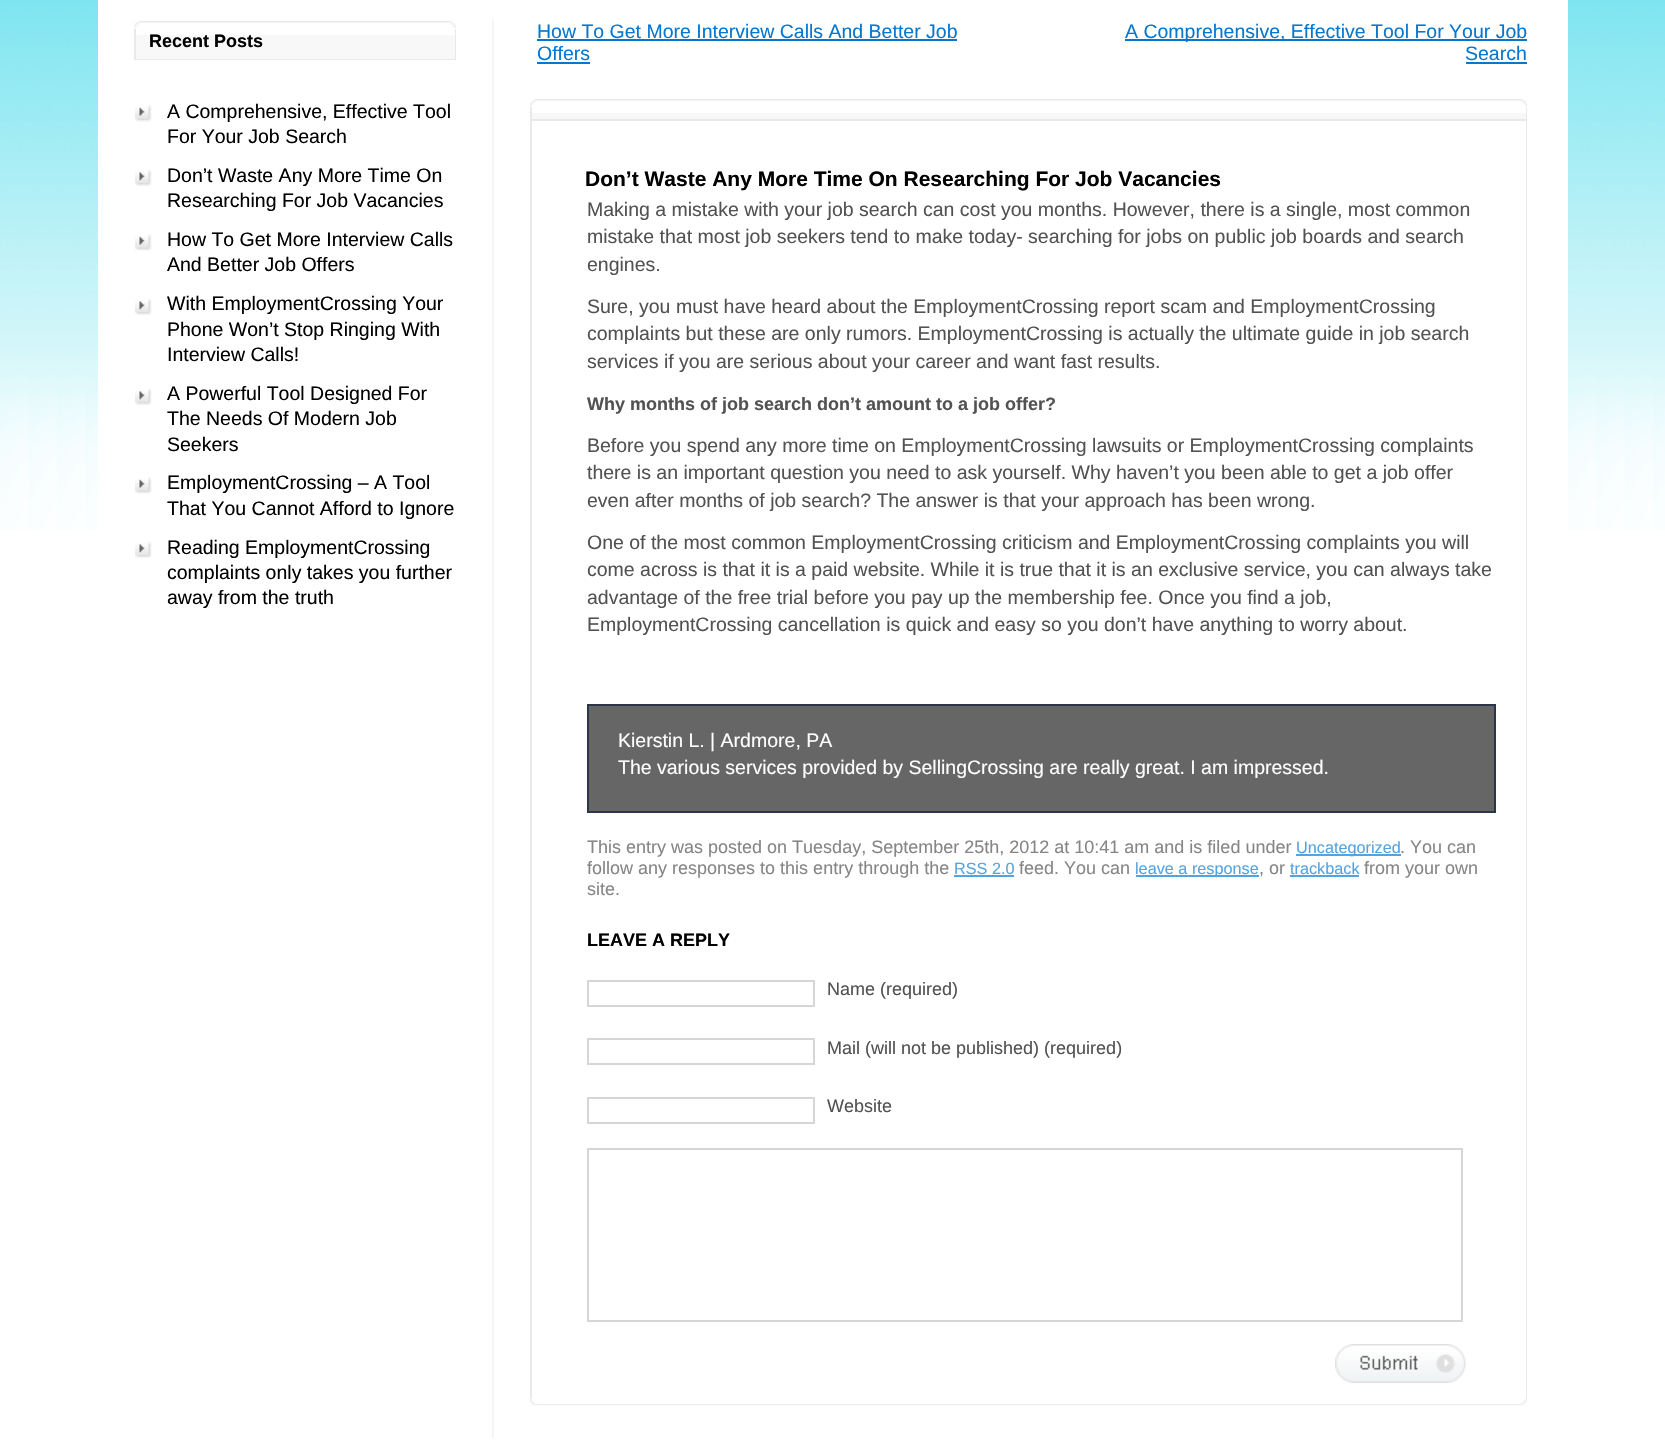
void draw(SkCanvas* canvas) {
    SkPaint paint;
    paint.setAntiAlias(true);
    auto face = [&](const char* family, int weight, float size, bool italic = false) {
        SkFontStyle style(weight, SkFontStyle::kNormal_Width,
            italic ? SkFontStyle::kItalic_Slant : SkFontStyle::kUpright_Slant);
        SkFont result(fontMgr->matchFamilyStyle(family, style), size);
        result.setSubpixel(true);
        return result;
    };
    auto write = [&](const char* s, float x, float y, const SkFont& font, SkColor color) {
        SkPaint ink(SkColor4f::FromColor(color));
        ink.setAntiAlias(true);
        canvas->drawString(s, x, y, font, ink);
    };
    auto block = [&](float x, float y, float w, float h, SkColor color) {
        SkPaint ink(SkColor4f::FromColor(color));
        ink.setAntiAlias(true);
        canvas->drawRect(SkRect::MakeXYWH(x, y, w, h), ink);
    };
    auto paste = [&](const char* path, float x, float y, float w, float h) {
        auto image = SkImages::DeferredFromEncodedData(SkData::MakeFromFileName(path));
        canvas->drawImageRect(image, SkRect::MakeXYWH(x, y, w, h), SkSamplingOptions());
    };
    canvas->clear(SK_ColorWHITE);
    paste("pic1.png", 0, 0, 1665, 530);
    block(98, 0, 1470, 530, SK_ColorWHITE);
    paste("pic2.png", 492, 19, 2, 1420);
    paste("pic3.png", 133, 21, 317, 2);
    paste("pic4.png", 133, 21, 7, 8);
    paste("pic5.png", 450, 21, 6, 7);
    block(136, 35, 319, 24, SkColorSetRGB(248, 248, 248));
    block(134, 28, 1, 1, SkColorSetRGB(254, 254, 254));
    block(455, 29, 1, 31, SkColorSetRGB(233, 233, 233));
    block(134, 59, 322, 1, SkColorSetRGB(233, 233, 233));
    block(134, 29, 2, 31, SkColorSetRGB(233, 233, 233));
    auto kFont1 = face("Liberation Sans", 700, 18);
    write("Recent Posts", 149, 47, kFont1, SK_ColorBLACK);
    paste("pic6.png", 135, 105, 17, 17);
    auto kFont2 = face("Liberation Sans", 400, 19.5f);
    write("A Comprehensive, Effective Tool", 167, 118, kFont2, SK_ColorBLACK);
    write("For Your Job Search", 167, 143, kFont2, SK_ColorBLACK);
    paste("pic7.png", 135, 169, 17, 17);
    write("Don’t Waste Any More Time On", 167, 182, kFont2, SK_ColorBLACK);
    write("Researching For Job Vacancies", 167, 207, kFont2, SK_ColorBLACK);
    paste("pic6.png", 135, 234, 17, 17);
    write("How To Get More Interview Calls", 167, 246, kFont2, SK_ColorBLACK);
    write("And Better Job Offers", 167, 271, kFont2, SK_ColorBLACK);
    paste("pic7.png", 135, 298, 17, 17);
    write("With EmploymentCrossing Your", 167, 310, kFont2, SK_ColorBLACK);
    write("Phone Won’t Stop Ringing With", 167, 336, kFont2, SK_ColorBLACK);
    write("Interview Calls!", 167, 361, kFont2, SK_ColorBLACK);
    paste("pic7.png", 135, 388, 17, 17);
    write("A Powerful Tool Designed For", 167, 400, kFont2, SK_ColorBLACK);
    write("The Needs Of Modern Job", 167, 425, kFont2, SK_ColorBLACK);
    write("Seekers", 167, 451, kFont2, SK_ColorBLACK);
    paste("pic6.png", 135, 477, 17, 17);
    write("EmploymentCrossing – A Tool", 167, 489, kFont2, SK_ColorBLACK);
    write("That You Cannot Afford to Ignore", 167, 515, kFont2, SK_ColorBLACK);
    paste("pic7.png", 135, 541, 17, 17);
    write("Reading EmploymentCrossing", 167, 554, kFont2, SK_ColorBLACK);
    write("complaints only takes you further", 167, 579, kFont2, SK_ColorBLACK);
    write("away from the truth", 167, 604, kFont2, SK_ColorBLACK);
    write("How To Get More Interview Calls And Better Job", 537, 38, kFont2, SkColorSetRGB(5, 119, 207));
    block(537, 39, 420, 2, SkColorSetRGB(5, 119, 207));
    write("Offers", 537, 60, kFont2, SkColorSetRGB(5, 119, 207));
    block(537, 62, 53, 2, SkColorSetRGB(5, 119, 207));
    block(1125, 39, 402, 2, SkColorSetRGB(5, 119, 207));
    write("A Comprehensive, Effective Tool For Your Job", 1125, 38, kFont2, SkColorSetRGB(5, 119, 207));
    write("Search", 1465, 60, kFont2, SkColorSetRGB(5, 119, 207));
    block(1466, 62, 61, 2, SkColorSetRGB(5, 119, 207));
    paste("pic8.png", 529, 99, 992, 2);
    paste("pic9.png", 529, 99, 7, 8);
    paste("pic10.png", 1521, 99, 6, 7);
    block(532, 113, 994, 6, SkColorSetRGB(248, 248, 248));
    block(530, 106, 1, 1, SkColorSetRGB(254, 254, 254));
    block(1526, 107, 1, 13, SkColorSetRGB(233, 233, 233));
    block(530, 119, 997, 2, SkColorSetRGB(233, 233, 233));
    block(530, 107, 2, 1291, SkColorSetRGB(233, 233, 233));
    block(1526, 120, 1, 1278, SkColorSetRGB(233, 233, 233));
    auto kFont3 = face("Liberation Sans", 700, 21);
    write("Don’t Waste Any More Time On Researching For Job Vacancies", 585, 186, kFont3, SK_ColorBLACK);
    paste("pic11.png", 529, 1404, 998, 2);
    paste("pic12.png", 529, 1398, 8, 7);
    paste("pic13.png", 1520, 1398, 7, 7);
    write("Making a mistake with your job search can cost you months. However, there is a single, most common", 587, 216, kFont2, SkColorSetRGB(82, 82, 82));
    write("mistake that most job seekers tend to make today- searching for jobs on public job boards and search", 587, 243, kFont2, SkColorSetRGB(82, 82, 82));
    write("engines.", 587, 271, kFont2, SkColorSetRGB(82, 82, 82));
    write("Sure, you must have heard about the EmploymentCrossing report scam and EmploymentCrossing", 587, 313, kFont2, SkColorSetRGB(82, 82, 82));
    write("complaints but these are only rumors. EmploymentCrossing is actually the ultimate guide in job search", 587, 340, kFont2, SkColorSetRGB(82, 82, 82));
    write("services if you are serious about your career and want fast results.", 587, 368, kFont2, SkColorSetRGB(82, 82, 82));
    write("Why months of job search don’t amount to a job offer?", 587, 410, kFont1, SkColorSetRGB(82, 82, 82));
    write("Before you spend any more time on EmploymentCrossing lawsuits or EmploymentCrossing complaints", 587, 452, kFont2, SkColorSetRGB(82, 82, 82));
    write("there is an important question you need to ask yourself. Why haven’t you been able to get a job offer", 587, 479, kFont2, SkColorSetRGB(82, 82, 82));
    write("even after months of job search? The answer is that your approach has been wrong.", 587, 507, kFont2, SkColorSetRGB(82, 82, 82));
    write("One of the most common EmploymentCrossing criticism and EmploymentCrossing complaints you will", 587, 549, kFont2, SkColorSetRGB(82, 82, 82));
    write("come across is that it is a paid website. While it is true that it is an exclusive service, you can always take", 587, 576, kFont2, SkColorSetRGB(82, 82, 82));
    write("advantage of the free trial before you pay up the membership fee. Once you find a job,", 587, 604, kFont2, SkColorSetRGB(82, 82, 82));
    write("EmploymentCrossing cancellation is quick and easy so you don’t have anything to worry about.", 587, 631, kFont2, SkColorSetRGB(82, 82, 82));
    paint.setColor(SkColorSetRGB(102, 102, 102));
    canvas->drawRect(SkRect::MakeXYWH(588, 705, 907, 107), paint);
    paint.setStyle(SkPaint::kStroke_Style);
    paint.setStrokeWidth(2);
    paint.setColor(SkColorSetRGB(43, 54, 73));
    canvas->drawRect(SkRect::MakeXYWH(588, 705, 907, 107), paint);
    write("Kierstin L. | Ardmore, PA", 618, 747, kFont2, SK_ColorWHITE);
    write("The various services provided by SellingCrossing are really great. I am impressed.", 618, 774, kFont2, SK_ColorWHITE);
    auto kFont4 = face("Liberation Sans", 400, 18);
    write("This entry was posted on Tuesday, September 25th, 2012 at 10:41 am and is filed under", 587, 853, kFont4, SkColorSetRGB(134, 134, 134));
    block(1296, 854, 105, 2, SkColorSetRGB(85, 163, 222));
    auto kFont5 = face("Liberation Sans", 400, 16.25f);
    write("Uncategorized", 1296, 853, kFont5, SkColorSetRGB(85, 163, 222));
    write(". You can", 1400, 853, kFont4, SkColorSetRGB(134, 134, 134));
    write("follow any responses to this entry through the", 587, 874, kFont4, SkColorSetRGB(134, 134, 134));
    write("RSS 2.0", 954, 874, kFont5, SkColorSetRGB(85, 163, 222));
    block(954, 875, 60, 2, SkColorSetRGB(85, 163, 222));
    write("feed. You can", 1019, 874, kFont4, SkColorSetRGB(134, 134, 134));
    block(1136, 875, 123, 2, SkColorSetRGB(85, 163, 222));
    write("leave a response", 1135, 874, kFont5, SkColorSetRGB(85, 163, 222));
    write(", or", 1259, 874, kFont4, SkColorSetRGB(134, 134, 134));
    write("trackback", 1290, 874, kFont5, SkColorSetRGB(85, 163, 222));
    block(1290, 875, 69, 2, SkColorSetRGB(85, 163, 222));
    write("from your own", 1364, 874, kFont4, SkColorSetRGB(134, 134, 134));
    write("site.", 587, 895, kFont4, SkColorSetRGB(134, 134, 134));
    write("LEAVE A REPLY", 587, 946, kFont1, SK_ColorBLACK);
    paint.setColor(SkColorSetRGB(214, 214, 214));
    canvas->drawRect(SkRect::MakeXYWH(588, 981, 226, 25), paint);
    write("Name (required)", 827, 995, kFont4, SkColorSetRGB(82, 82, 82));
    canvas->drawRect(SkRect::MakeXYWH(588, 1039, 226, 25), paint);
    write("Mail (will not be published) (required)", 827, 1054, kFont4, SkColorSetRGB(82, 82, 82));
    canvas->drawRect(SkRect::MakeXYWH(588, 1098, 226, 25), paint);
    write("Website", 827, 1112, kFont4, SkColorSetRGB(82, 82, 82));
    canvas->drawRect(SkRect::MakeXYWH(588, 1149, 874, 172), paint);
    paste("pic14.png", 1335, 1344, 131, 39);
}
